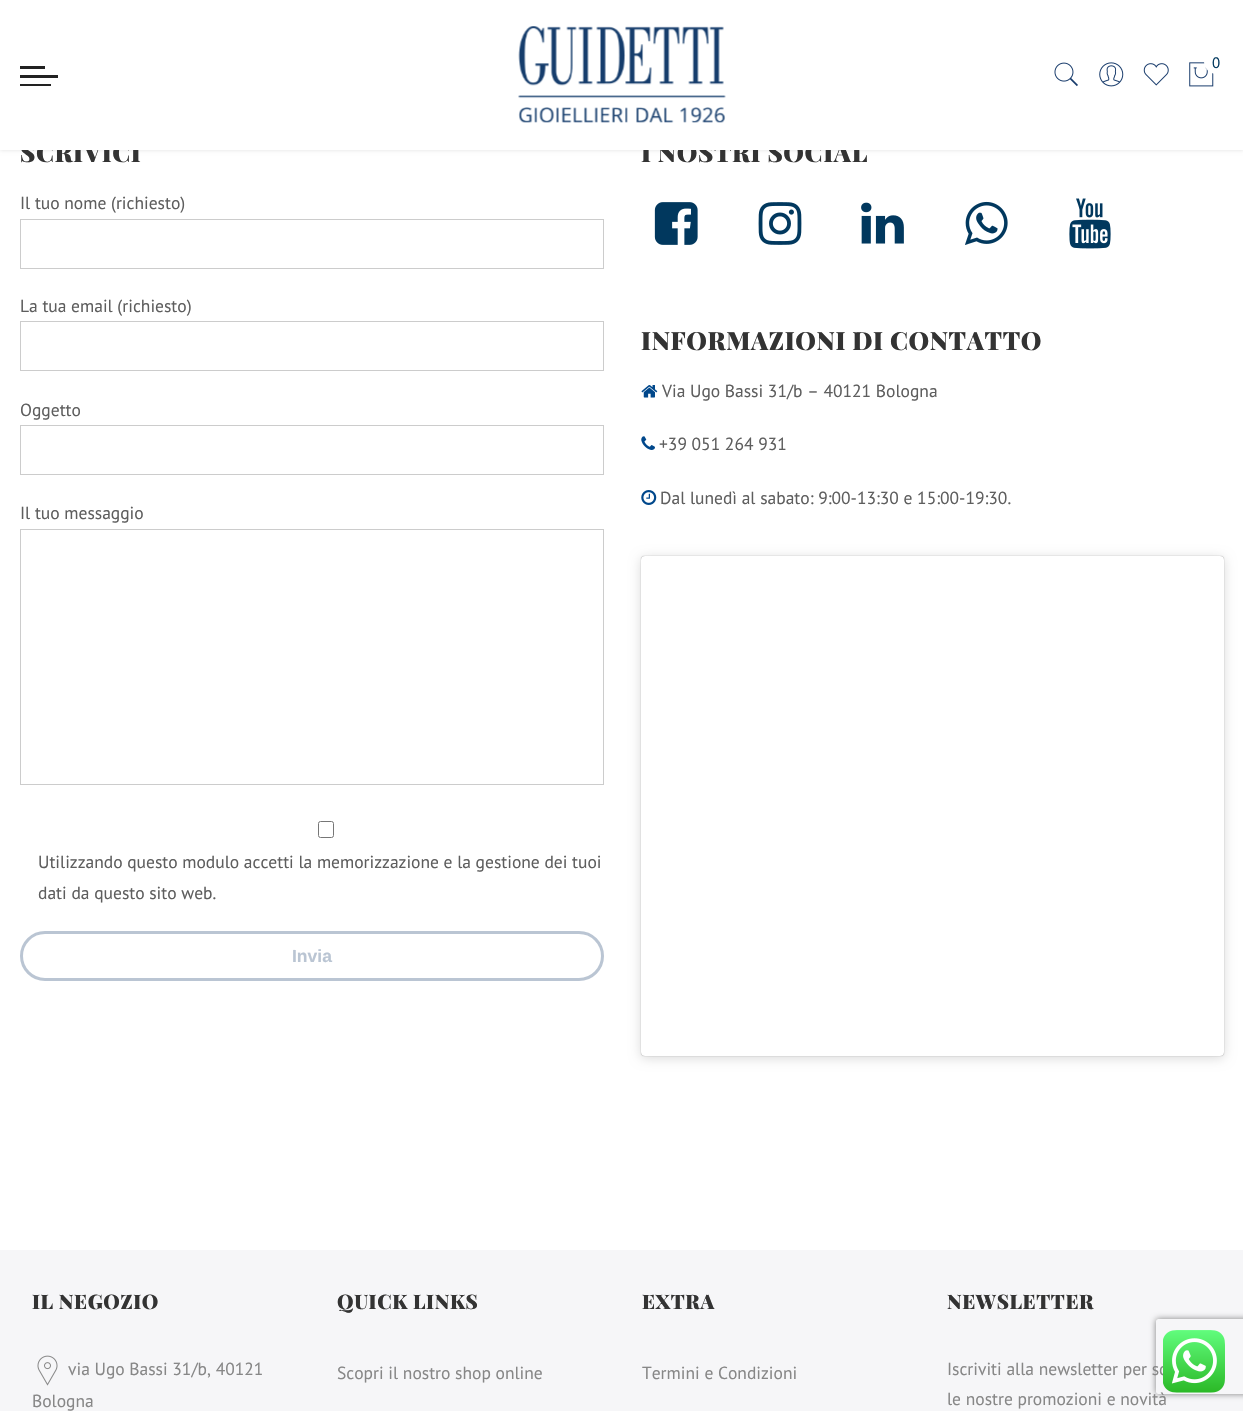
void draw(SkCanvas* canvas) {
    SkPaint paint;
    paint.setAntiAlias(true);
    auto face = [&](const char* family, int weight, float size, bool italic = false) {
        SkFontStyle style(weight, SkFontStyle::kNormal_Width,
            italic ? SkFontStyle::kItalic_Slant : SkFontStyle::kUpright_Slant);
        SkFont result(fontMgr->matchFamilyStyle(family, style), size);
        result.setSubpixel(true);
        return result;
    };
    auto write = [&](const char* s, float x, float y, const SkFont& font, SkColor color) {
        SkPaint ink(SkColor4f::FromColor(color));
        ink.setAntiAlias(true);
        canvas->drawString(s, x, y, font, ink);
    };
    auto writeSpaced = [&](const char* s, float x, float y, const SkFont& font, const SkPaint& ink, float letter, float word) {
        std::vector<SkGlyphID> glyphs(font.countText(s, strlen(s), SkTextEncoding::kUTF8));
        std::vector<float> xs(glyphs.size());
        font.textToGlyphs(s, strlen(s), SkTextEncoding::kUTF8, glyphs);
        font.getXPos(glyphs, xs, x);
        float extra = 0;
        for (size_t i = 0; i < glyphs.size(); i++) {
            xs[i] += extra;
            extra += letter + word * (glyphs[i] == font.unicharToGlyph(' '));
        }
        canvas->drawTextBlob(SkTextBlob::MakeFromPosHGlyphs(glyphs, xs, y, font), 0, 0, ink);
    };
    auto block = [&](float x, float y, float w, float h, SkColor color) {
        SkPaint ink(SkColor4f::FromColor(color));
        ink.setAntiAlias(true);
        canvas->drawRect(SkRect::MakeXYWH(x, y, w, h), ink);
    };
    auto card = [&](float x, float y, float w, float h, float radius, SkColor color) {
        SkPaint ink(SkColor4f::FromColor(color));
        ink.setAntiAlias(true);
        canvas->drawRoundRect(SkRect::MakeXYWH(x, y, w, h), radius, radius, ink);
    };
    auto paste = [&](const char* path, float x, float y, float w, float h) {
        auto image = SkImages::DeferredFromEncodedData(SkData::MakeFromFileName(path));
        canvas->drawImageRect(image, SkRect::MakeXYWH(x, y, w, h), SkSamplingOptions());
    };
    canvas->clear(SK_ColorWHITE);
    paint.setColor(SkColorSetARGB(31, 0, 0, 0));
    paint.setMaskFilter(SkMaskFilter::MakeBlur(kNormal_SkBlurStyle, 2));
    canvas->drawRect(SkRect::MakeXYWH(0, 0, 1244, 150), paint);
    paint.setMaskFilter(nullptr);
    auto kFont1 = face("Playfair Display", 900, 25);
    paint.setColor(SkColorSetRGB(51, 51, 51));
    writeSpaced("SCRIVICI", 20, 162, kFont1, paint, 0.6f, 0);
    writeSpaced("I NOSTRI SOCIAL", 641, 162, kFont1, paint, 0.6f, 0);
    block(0, 0, 1243, 150, SK_ColorWHITE);
    paste("pic1.png", 518, 26, 208, 97);
    paste("pic2.png", 1054, 62, 24, 25);
    paste("pic3.png", 1099, 62, 25, 25);
    paste("pic4.png", 1143, 63, 26, 23);
    paste("pic5.png", 1189, 62, 25, 25);
    paint.setColor(SK_ColorWHITE);
    canvas->drawCircle(1216.5f, 61.5f, 12.5f, paint);
    auto kFont2 = face("PT Sans", 400, 15);
    write("0", 1212, 68, kFont2, SkColorSetRGB(1, 56, 94));
    block(20, 66, 25, 3, SkColorSetRGB(34, 34, 34));
    block(20, 75, 38, 3, SkColorSetRGB(34, 34, 34));
    block(20, 84, 31, 2, SkColorSetRGB(34, 34, 34));
    auto kFont3 = face("PT Sans", 400, 17.5f);
    write("Il tuo nome (richiesto)", 20, 209, kFont3, SkColorSetRGB(94, 94, 94));
    paint.setStyle(SkPaint::kStroke_Style);
    paint.setStrokeWidth(1);
    paint.setColor(SkColorSetRGB(204, 204, 204));
    canvas->drawRect(SkRect::MakeXYWH(20.5f, 219.5f, 583, 49), paint);
    write("La tua email (richiesto)", 20, 312, kFont3, SkColorSetRGB(94, 94, 94));
    canvas->drawRect(SkRect::MakeXYWH(20.5f, 321.5f, 583, 49), paint);
    write("Oggetto", 20, 416, kFont3, SkColorSetRGB(94, 94, 94));
    canvas->drawRect(SkRect::MakeXYWH(20.5f, 425.5f, 583, 49), paint);
    write("Il tuo messaggio", 20, 519, kFont3, SkColorSetRGB(94, 94, 94));
    canvas->drawRect(SkRect::MakeXYWH(20.5f, 529.5f, 583, 255), paint);
    paint.setColor(SkColorSetRGB(118, 118, 118));
    canvas->drawRoundRect(SkRect::MakeXYWH(318.5f, 821.5f, 15, 16), 2, 2, paint);
    write("Utilizzando questo modulo accetti la memorizzazione e la gestione dei tuoi", 38, 868, kFont3, SkColorSetRGB(94, 94, 94));
    write("dati da questo sito web.", 38, 899, kFont3, SkColorSetRGB(94, 94, 94));
    paint.setStrokeWidth(3);
    paint.setColor(SkColorSetRGB(186, 197, 211));
    canvas->drawRoundRect(SkRect::MakeXYWH(21.5f, 932.5f, 581, 47), 23.5f, 23.5f, paint);
    auto kFont4 = face("Liberation Sans", 700, 17.5f);
    write("Invia", 292, 962, kFont4, SkColorSetRGB(186, 197, 211));
    paste("pic6.png", 654, 202, 44, 43);
    paste("pic7.png", 758, 202, 44, 43);
    paste("pic8.png", 861, 202, 43, 42);
    paste("pic9.png", 965, 201, 43, 44);
    paste("pic10.png", 1069, 198, 42, 51);
    paint.setStyle(SkPaint::kFill_Style);
    paint.setColor(SkColorSetRGB(51, 51, 51));
    writeSpaced("INFORMAZIONI DI CONTATTO", 641, 350, kFont1, paint, 0.6f, 0);
    paste("pic11.png", 641, 385, 17, 13);
    write("Via Ugo Bassi 31/b – 40121 Bologna", 662, 397, kFont3, SkColorSetRGB(94, 94, 94));
    paste("pic12.png", 641, 436, 14, 14);
    write("+39 051 264 931", 659, 450, kFont3, SkColorSetRGB(94, 94, 94));
    paste("pic13.png", 641, 490, 16, 15);
    write("Dal lunedì al sabato: 9:00-13:30 e 15:00-19:30.", 660, 504, kFont3, SkColorSetRGB(94, 94, 94));
    paint.setColor(SkColorSetARGB(38, 0, 0, 0));
    paint.setMaskFilter(SkMaskFilter::MakeBlur(kNormal_SkBlurStyle, 6));
    canvas->drawRoundRect(SkRect::MakeXYWH(641, 558, 583, 500), 4, 4, paint);
    paint.setMaskFilter(nullptr);
    paint.setColor(SkColorSetARGB(128, 0, 0, 0));
    paint.setMaskFilter(SkMaskFilter::MakeBlur(kNormal_SkBlurStyle, 0.5f));
    canvas->drawRoundRect(SkRect::MakeXYWH(641, 556, 583, 500), 4, 4, paint);
    paint.setMaskFilter(nullptr);
    card(641, 556, 583, 500, 4, SK_ColorWHITE);
    block(0, 1250, 1243, 161, SkColorSetRGB(246, 246, 248));
    auto kFont5 = face("Playfair Display", 900, 20);
    paint.setColor(SkColorSetRGB(51, 51, 51));
    writeSpaced("IL NEGOZIO", 32, 1309, kFont5, paint, 0.6f, 0);
    paste("pic14.png", 37, 1355, 21, 31);
    write("via Ugo Bassi 31/b, 40121", 68, 1375, kFont3, SkColorSetRGB(135, 135, 135));
    write("Bologna", 32, 1407, kFont3, SkColorSetRGB(135, 135, 135));
    writeSpaced("QUICK LINKS", 337, 1309, kFont5, paint, 0.6f, 0);
    write("Scopri il nostro shop online", 337, 1379, kFont3, SkColorSetRGB(135, 135, 135));
    writeSpaced("EXTRA", 642, 1309, kFont5, paint, 0.6f, 0);
    write("Termini e Condizioni", 642, 1379, kFont3, SkColorSetRGB(135, 135, 135));
    writeSpaced("NEWSLETTER", 947, 1309, kFont5, paint, 0.6f, 0);
    write("Iscriviti alla newsletter per sc", 947, 1375, kFont3, SkColorSetRGB(135, 135, 135));
    write("le nostre promozioni e novità", 947, 1405, kFont3, SkColorSetRGB(135, 135, 135));
    canvas->save();
    canvas->clipPath(SkPathBuilder(SkPathFillType::kEvenOdd).moveTo(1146, 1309).lineTo(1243, 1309).lineTo(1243, 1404).lineTo(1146, 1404).close().moveTo(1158.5f, 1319).lineTo(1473.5f, 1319).cubicTo(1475, 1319, 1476, 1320, 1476, 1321.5f).lineTo(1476, 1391.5f).cubicTo(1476, 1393, 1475, 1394, 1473.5f, 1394).lineTo(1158.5f, 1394).cubicTo(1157, 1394, 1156, 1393, 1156, 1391.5f).lineTo(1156, 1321.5f).cubicTo(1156, 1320, 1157, 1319, 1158.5f, 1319).close().detach(), true);
    paint.setColor(SkColorSetRGB(128, 128, 128));
    paint.setMaskFilter(SkMaskFilter::MakeBlur(kNormal_SkBlurStyle, 3));
    canvas->drawRoundRect(SkRect::MakeXYWH(1156, 1319, 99, 75), 2.5f, 2.5f, paint);
    paint.setMaskFilter(nullptr);
    canvas->restore();
    paste("pic15.png", 1163, 1330, 62, 63);
}
